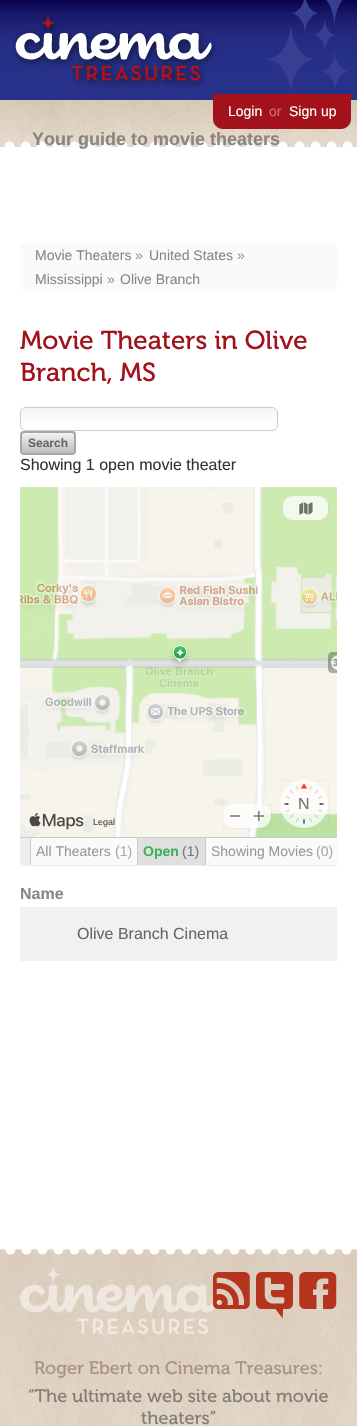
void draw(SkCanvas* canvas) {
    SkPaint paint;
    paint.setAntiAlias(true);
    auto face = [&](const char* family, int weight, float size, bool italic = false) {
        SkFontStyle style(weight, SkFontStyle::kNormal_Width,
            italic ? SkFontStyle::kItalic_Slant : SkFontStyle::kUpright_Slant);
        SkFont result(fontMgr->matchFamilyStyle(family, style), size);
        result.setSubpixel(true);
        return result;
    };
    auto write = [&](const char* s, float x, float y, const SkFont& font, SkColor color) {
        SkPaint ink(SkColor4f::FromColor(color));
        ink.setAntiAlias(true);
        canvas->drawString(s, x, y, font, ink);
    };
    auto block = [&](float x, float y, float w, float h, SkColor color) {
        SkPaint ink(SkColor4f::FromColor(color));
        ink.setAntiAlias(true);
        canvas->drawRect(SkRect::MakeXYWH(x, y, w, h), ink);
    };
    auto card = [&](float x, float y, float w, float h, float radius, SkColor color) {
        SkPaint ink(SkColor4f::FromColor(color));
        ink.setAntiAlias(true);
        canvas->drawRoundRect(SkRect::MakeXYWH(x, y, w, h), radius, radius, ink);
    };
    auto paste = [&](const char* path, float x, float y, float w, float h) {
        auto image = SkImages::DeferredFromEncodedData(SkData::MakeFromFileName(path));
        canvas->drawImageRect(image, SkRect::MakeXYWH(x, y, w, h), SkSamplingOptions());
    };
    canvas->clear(SK_ColorWHITE);
    paste("pic1.png", 0, 0, 357, 100);
    paste("pic2.png", 267, 0, 81, 93);
    paste("pic3.png", 12, 15, 206, 73);
    paste("pic4.png", 0, 100, 357, 48);
    paint.setColor(SkColorSetRGB(163, 18, 27));
    canvas->drawPath(SkPathBuilder().moveTo(213, 94).lineTo(351, 94).lineTo(351, 119).cubicTo(351, 124.5f, 346.5f, 129, 341, 129).lineTo(223, 129).cubicTo(217.5f, 129, 213, 124.5f, 213, 119).close().detach(), paint);
    auto kFont1 = face("Liberation Sans", 400, 14);
    write("Login", 228, 116, kFont1, SK_ColorWHITE);
    write("or", 269, 116, kFont1, SkColorSetRGB(200, 113, 118));
    write("Sign up", 289, 116, kFont1, SK_ColorWHITE);
    auto kFont2 = face("Liberation Sans", 700, 18);
    write("Your guide to movie theaters", 32, 145, kFont2, SkColorSetRGB(139, 133, 125));
    card(20, 243, 317, 48, 6, SkColorSetRGB(250, 250, 250));
    write("Movie Theaters", 35, 260, kFont1, SkColorSetRGB(136, 136, 136));
    write("»", 135, 260, kFont1, SkColorSetRGB(153, 153, 153));
    write("United States", 149, 260, kFont1, SkColorSetRGB(136, 136, 136));
    write("»", 237, 260, kFont1, SkColorSetRGB(153, 153, 153));
    write("Mississippi", 35, 284, kFont1, SkColorSetRGB(136, 136, 136));
    write("»", 107, 284, kFont1, SkColorSetRGB(153, 153, 153));
    write("Olive Branch", 120, 284, kFont1, SkColorSetRGB(136, 136, 136));
    auto kFont3 = face("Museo", 400, 26);
    write("Movie Theaters in Olive", 20, 349, kFont3, SkColorSetRGB(163, 18, 27));
    write("Branch, MS", 20, 381, kFont3, SkColorSetRGB(163, 18, 27));
    canvas->save();
    canvas->clipPath(SkPathBuilder().moveTo(26, 407).lineTo(272, 407).cubicTo(275.5f, 407, 278, 409.5f, 278, 413).lineTo(278, 425).cubicTo(278, 428.5f, 275.5f, 431, 272, 431).lineTo(26, 431).cubicTo(22.5f, 431, 20, 428.5f, 20, 425).lineTo(20, 413).cubicTo(20, 409.5f, 22.5f, 407, 26, 407).close().detach(), true);
    {
        const SkColor colors[] = {SkColorSetRGB(246, 246, 246), SK_ColorWHITE};
        const float stops[] = {0, 1};
        const SkPoint ends[] = {{149, 408}, {149, 430}};
        paint.setShader(SkGradientShader::MakeLinear(ends, colors, stops, 2, SkTileMode::kClamp));
        paint.setAlpha(255);
    }
    canvas->drawRect(SkRect::MakeXYWH(20, 408, 258, 22), paint);
    canvas->restore();
    paint.setStyle(SkPaint::kStroke_Style);
    paint.setStrokeWidth(1);
    paint.setShader(nullptr);
    paint.setColor(SkColorSetRGB(204, 204, 204));
    canvas->drawRoundRect(SkRect::MakeXYWH(20.5f, 407.5f, 257, 23), 5.5f, 5.5f, paint);
    paint.setStyle(SkPaint::kFill_Style);
    {
        const SkColor colors[] = {SkColorSetRGB(242, 242, 242), SkColorSetRGB(189, 189, 189)};
        const float stops[] = {0, 1};
        const SkPoint ends[] = {{48, 433}, {48, 453}};
        paint.setShader(SkGradientShader::MakeLinear(ends, colors, stops, 2, SkTileMode::kClamp));
        paint.setAlpha(255);
    }
    canvas->drawRoundRect(SkRect::MakeXYWH(22, 433, 52, 20), 2, 2, paint);
    paint.setStyle(SkPaint::kStroke_Style);
    paint.setStrokeWidth(2);
    paint.setShader(nullptr);
    paint.setColor(SkColorSetRGB(166, 166, 166));
    canvas->drawRoundRect(SkRect::MakeXYWH(21, 432, 54, 22), 3, 3, paint);
    auto kFont4 = face("Liberation Sans", 700, 12);
    write("Search", 28, 447, kFont4, SkColorSetRGB(102, 102, 102));
    auto kFont5 = face("Liberation Sans", 400, 16);
    write("Showing 1 open movie theater", 20, 470, kFont5, SkColorSetRGB(51, 51, 51));
    paste("pic5.png", 20, 487, 317, 350);
    paste("pic6.png", 20, 487, 317, 350);
    paint.setStrokeWidth(0.5f);
    paint.setColor(SkColorSetRGB(195, 223, 167));
    canvas->drawRoundRect(SkRect::MakeXYWH(283.25f, 496.25f, 45.5f, 24.5f), 9.75f, 9.75f, paint);
    card(283, 496, 45, 24, 9, SkColorSetARGB(191, 255, 255, 255));
    paste("pic7.png", 299, 502, 14, 13);
    paint.setColor(SkColorSetARGB(13, 0, 0, 0));
    canvas->drawRect(SkRect::MakeXYWH(223.25f, 804.25f, 48.5f, 24.5f), paint);
    card(223, 804, 48, 24, 12, SkColorSetARGB(191, 255, 255, 255));
    paste("pic8.png", 230, 815, 10, 2);
    paste("pic9.png", 253, 810, 11, 12);
    canvas->drawRect(SkRect::MakeXYWH(280.25f, 780.25f, 48.5f, 48.5f), paint);
    paint.setStyle(SkPaint::kFill_Style);
    paint.setColor(SkColorSetARGB(191, 255, 255, 255));
    canvas->drawCircle(304, 804, 24, paint);
    paste("pic10.png", 284, 783, 40, 41);
    write("N", 298, 809, kFont5, SkColorSetRGB(114, 114, 113));
    paste("pic11.png", 29, 812, 55, 18);
    auto kFont6 = face("Liberation Sans", 400, 9);
    write("Legal", 93, 825, kFont6, SkColorSetRGB(74, 73, 70));
    paint.setColor(SkColorSetRGB(238, 238, 238));
    canvas->drawPath(SkPathBuilder().moveTo(20, 837).lineTo(337, 837).lineTo(337, 866).lineTo(26, 866).cubicTo(22.5f, 866, 20, 863.5f, 20, 860).close().detach(), paint);
    block(20, 837, 317, 1, SkColorSetRGB(204, 204, 204));
    canvas->save();
    canvas->clipRect(SkRect::MakeXYWH(20, 172, 317, 979));
    canvas->drawPath(SkPathBuilder().moveTo(26, 866).lineTo(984, 866).cubicTo(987, 866, 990, 863, 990, 860).cubicTo(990, 863, 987, 865, 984, 865).lineTo(26, 865).cubicTo(23, 865, 20, 863, 20, 860).cubicTo(20, 863, 23, 866, 26, 866).close().detach(), paint);
    canvas->restore();
    block(31, 838, 106, 27, SkColorSetRGB(250, 250, 250));
    block(137, 838, 1, 27, SkColorSetRGB(204, 204, 204));
    block(30, 838, 1, 27, SkColorSetRGB(204, 204, 204));
    write("All Theaters", 36, 856, kFont1, SkColorSetRGB(153, 153, 153));
    write("(1)", 115, 856, kFont1, SkColorSetRGB(170, 170, 170));
    block(138, 838, 67, 27, SkColorSetRGB(224, 224, 224));
    block(205, 838, 1, 27, SkColorSetRGB(204, 204, 204));
    auto kFont7 = face("Liberation Sans", 700, 14);
    write("Open", 143, 856, kFont7, SkColorSetRGB(56, 178, 87));
    write("(1)", 182, 856, kFont1, SkColorSetRGB(119, 119, 119));
    block(206, 838, 131, 27, SkColorSetRGB(250, 250, 250));
    write("Showing Movies", 211, 856, kFont1, SkColorSetRGB(153, 153, 153));
    write("(0)", 316, 856, kFont1, SkColorSetRGB(170, 170, 170));
    auto kFont8 = face("Liberation Sans", 700, 16);
    write("Name", 20, 899, kFont8, SkColorSetRGB(136, 136, 136));
    block(20, 907, 317, 54, SkColorSetRGB(241, 241, 241));
    write("Olive Branch Cinema", 77, 939, kFont5, SkColorSetRGB(102, 102, 102));
    paste("pic12.png", 0, 1249, 357, 177);
    paste("pic13.png", 20, 1266, 200, 68);
    paste("pic14.png", 213, 1272, 37, 37);
    paste("pic15.png", 256, 1272, 37, 46);
    paste("pic16.png", 299, 1272, 38, 37);
    auto kFont9 = face("Museo", 400, 18);
    write("Roger Ebert on Cinema Treasures:", 34, 1374, kFont9, SkColorSetRGB(169, 147, 130));
    write("“The ultimate web site about movie", 28, 1402, kFont9, SkColorSetRGB(134, 126, 117));
    write("theaters”", 141, 1424, kFont9, SkColorSetRGB(134, 126, 117));
}
